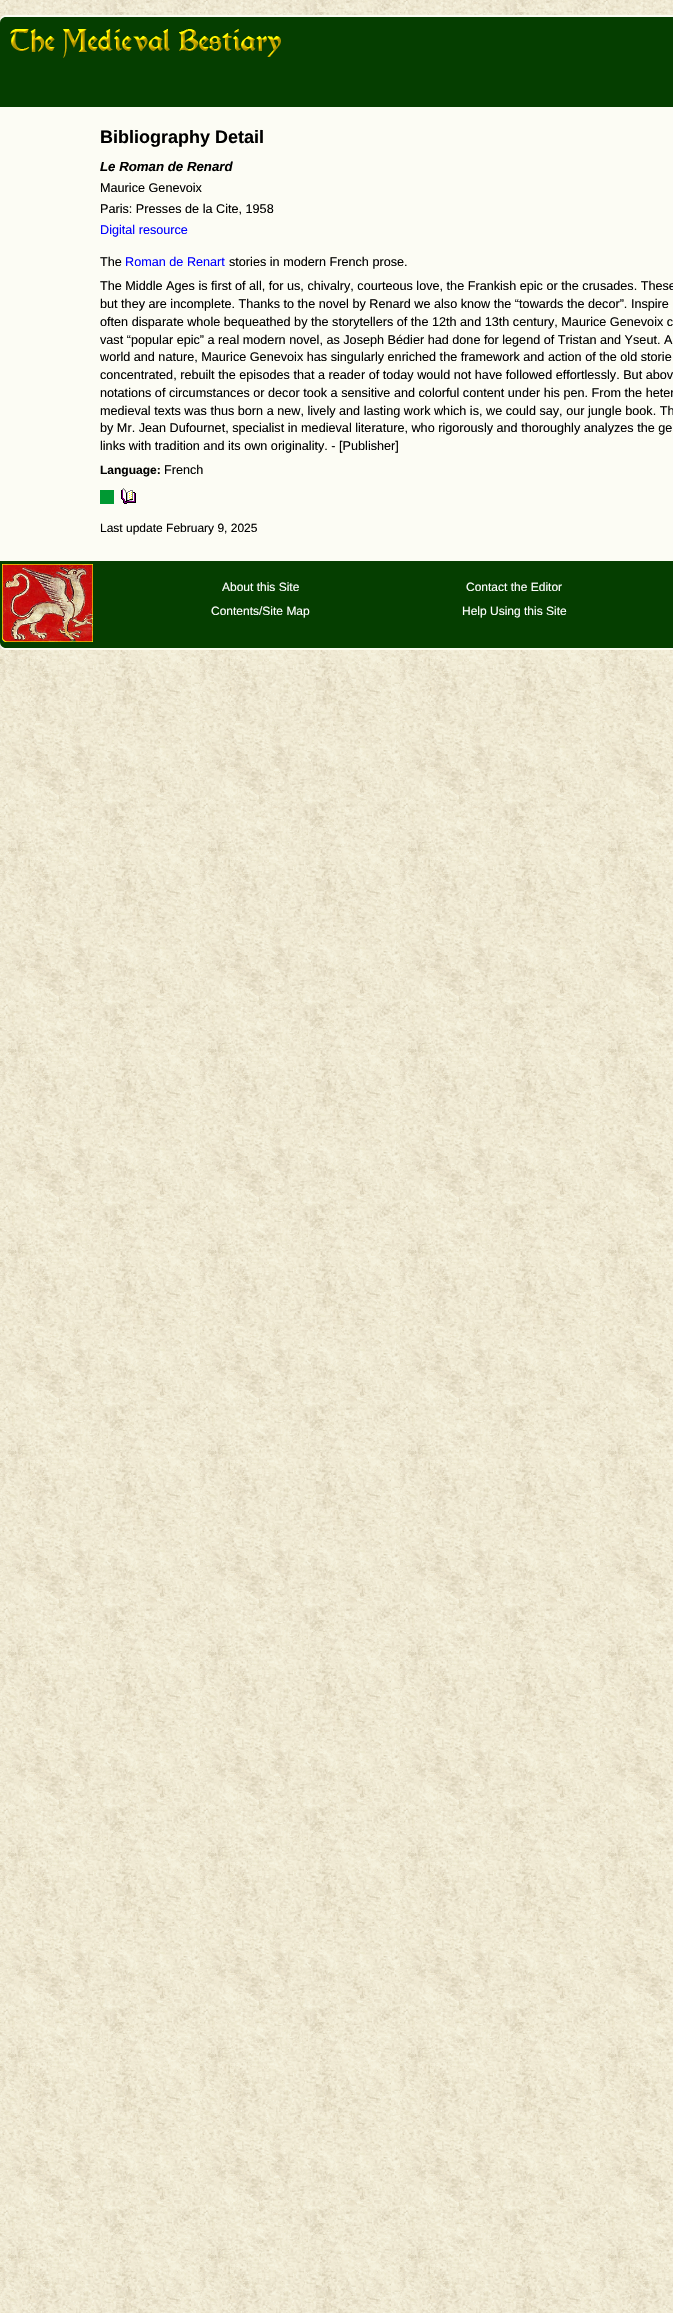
void draw(SkCanvas* canvas) {
    SkPaint paint;
    paint.setAntiAlias(true);
    auto face = [&](const char* family, int weight, float size, bool italic = false) {
        SkFontStyle style(weight, SkFontStyle::kNormal_Width,
            italic ? SkFontStyle::kItalic_Slant : SkFontStyle::kUpright_Slant);
        SkFont result(fontMgr->matchFamilyStyle(family, style), size);
        result.setSubpixel(true);
        return result;
    };
    auto write = [&](const char* s, float x, float y, const SkFont& font, SkColor color) {
        SkPaint ink(SkColor4f::FromColor(color));
        ink.setAntiAlias(true);
        canvas->drawString(s, x, y, font, ink);
    };
    auto block = [&](float x, float y, float w, float h, SkColor color) {
        SkPaint ink(SkColor4f::FromColor(color));
        ink.setAntiAlias(true);
        canvas->drawRect(SkRect::MakeXYWH(x, y, w, h), ink);
    };
    auto card = [&](float x, float y, float w, float h, float radius, SkColor color) {
        SkPaint ink(SkColor4f::FromColor(color));
        ink.setAntiAlias(true);
        canvas->drawRoundRect(SkRect::MakeXYWH(x, y, w, h), radius, radius, ink);
    };
    auto paste = [&](const char* path, float x, float y, float w, float h) {
        auto image = SkImages::DeferredFromEncodedData(SkData::MakeFromFileName(path));
        canvas->drawImageRect(image, SkRect::MakeXYWH(x, y, w, h), SkSamplingOptions());
    };
    canvas->clear(SK_ColorWHITE);
    paste("pic1.png", 0, 0, 673, 2313);
    card(0, 15, 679, 635, 6, SkColorSetRGB(252, 252, 244));
    paint.setColor(SkColorSetRGB(5, 62, 0));
    canvas->drawPath(SkPathBuilder().moveTo(6, 17).lineTo(673, 17).cubicTo(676.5f, 17, 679, 19.5f, 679, 23).lineTo(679, 107).lineTo(0, 107).lineTo(0, 23).cubicTo(0, 19.5f, 2.5f, 17, 6, 17).close().detach(), paint);
    paste("pic2.png", 10, 29, 271, 29);
    auto kFont1 = face("Liberation Sans", 700, 18);
    write("Bibliography Detail", 100, 143, kFont1, SK_ColorBLACK);
    auto kFont2 = face("Liberation Sans", 700, 13.25f, true);
    write("Le Roman de Renard", 100, 171, kFont2, SK_ColorBLACK);
    auto kFont3 = face("Liberation Sans", 400, 12.65f);
    write("Maurice Genevoix", 100, 192, kFont3, SK_ColorBLACK);
    write("Paris: Presses de la Cite, 1958", 100, 213, kFont3, SK_ColorBLACK);
    write("Digital resource", 100, 234, kFont3, SkColorSetRGB(0, 0, 255));
    write("The", 100, 266, kFont3, SK_ColorBLACK);
    write("Roman de Renart", 125, 266, kFont3, SkColorSetRGB(0, 0, 255));
    write("stories in modern French prose.", 229, 266, kFont3, SK_ColorBLACK);
    write("The Middle Ages is first of all, for us, chivalry, courteous love, the Frankish epic or the crusades. These", 100, 290, kFont3, SK_ColorBLACK);
    write("but they are incomplete. Thanks to the novel by Renard we also know the “towards the decor”. Inspire", 100, 308, kFont3, SK_ColorBLACK);
    write("often disparate whole bequeathed by the storytellers of the 12th and 13th century, Maurice Genevoix c", 100, 326, kFont3, SK_ColorBLACK);
    write("vast “popular epic” a real modern novel, as Joseph Bédier had done for legend of Tristan and Yseut. A", 100, 344, kFont3, SK_ColorBLACK);
    write("world and nature, Maurice Genevoix has singularly enriched the framework and action of the old storie", 100, 361, kFont3, SK_ColorBLACK);
    write("concentrated, rebuilt the episodes that a reader of today would not have followed effortlessly. But abov", 100, 379, kFont3, SK_ColorBLACK);
    write("notations of circumstances or decor took a sensitive and colorful content under his pen. From the heter", 100, 397, kFont3, SK_ColorBLACK);
    write("medieval texts was thus born a new, lively and lasting work which is, we could say, our jungle book. Th", 100, 415, kFont3, SK_ColorBLACK);
    write("by Mr. Jean Dufournet, specialist in medieval literature, who rigorously and thoroughly analyzes the ge", 100, 432, kFont3, SK_ColorBLACK);
    write("links with tradition and its own originality. - [Publisher]", 100, 450, kFont3, SK_ColorBLACK);
    auto kFont4 = face("Liberation Sans", 700, 12);
    write("Language:", 100, 474, kFont4, SK_ColorBLACK);
    write("French", 164, 474, kFont3, SK_ColorBLACK);
    block(100, 490, 14, 14, SkColorSetRGB(0, 153, 51));
    paste("pic3.png", 121, 488, 15, 16);
    auto kFont5 = face("Liberation Sans", 400, 12);
    write("Last update February 9, 2025", 100, 532, kFont5, SK_ColorBLACK);
    canvas->drawPath(SkPathBuilder().moveTo(0, 561).lineTo(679, 561).lineTo(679, 642).cubicTo(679, 645.5f, 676.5f, 648, 673, 648).lineTo(6, 648).cubicTo(2.5f, 648, 0, 645.5f, 0, 642).close().detach(), paint);
    paste("pic4.png", 2, 564, 91, 78);
    write("About this Site", 222, 591, kFont5, SK_ColorWHITE);
    write("Contents/Site Map", 211, 615, kFont5, SK_ColorWHITE);
    write("Contact the Editor", 466, 591, kFont5, SK_ColorWHITE);
    write("Help Using this Site", 462, 615, kFont5, SK_ColorWHITE);
}
